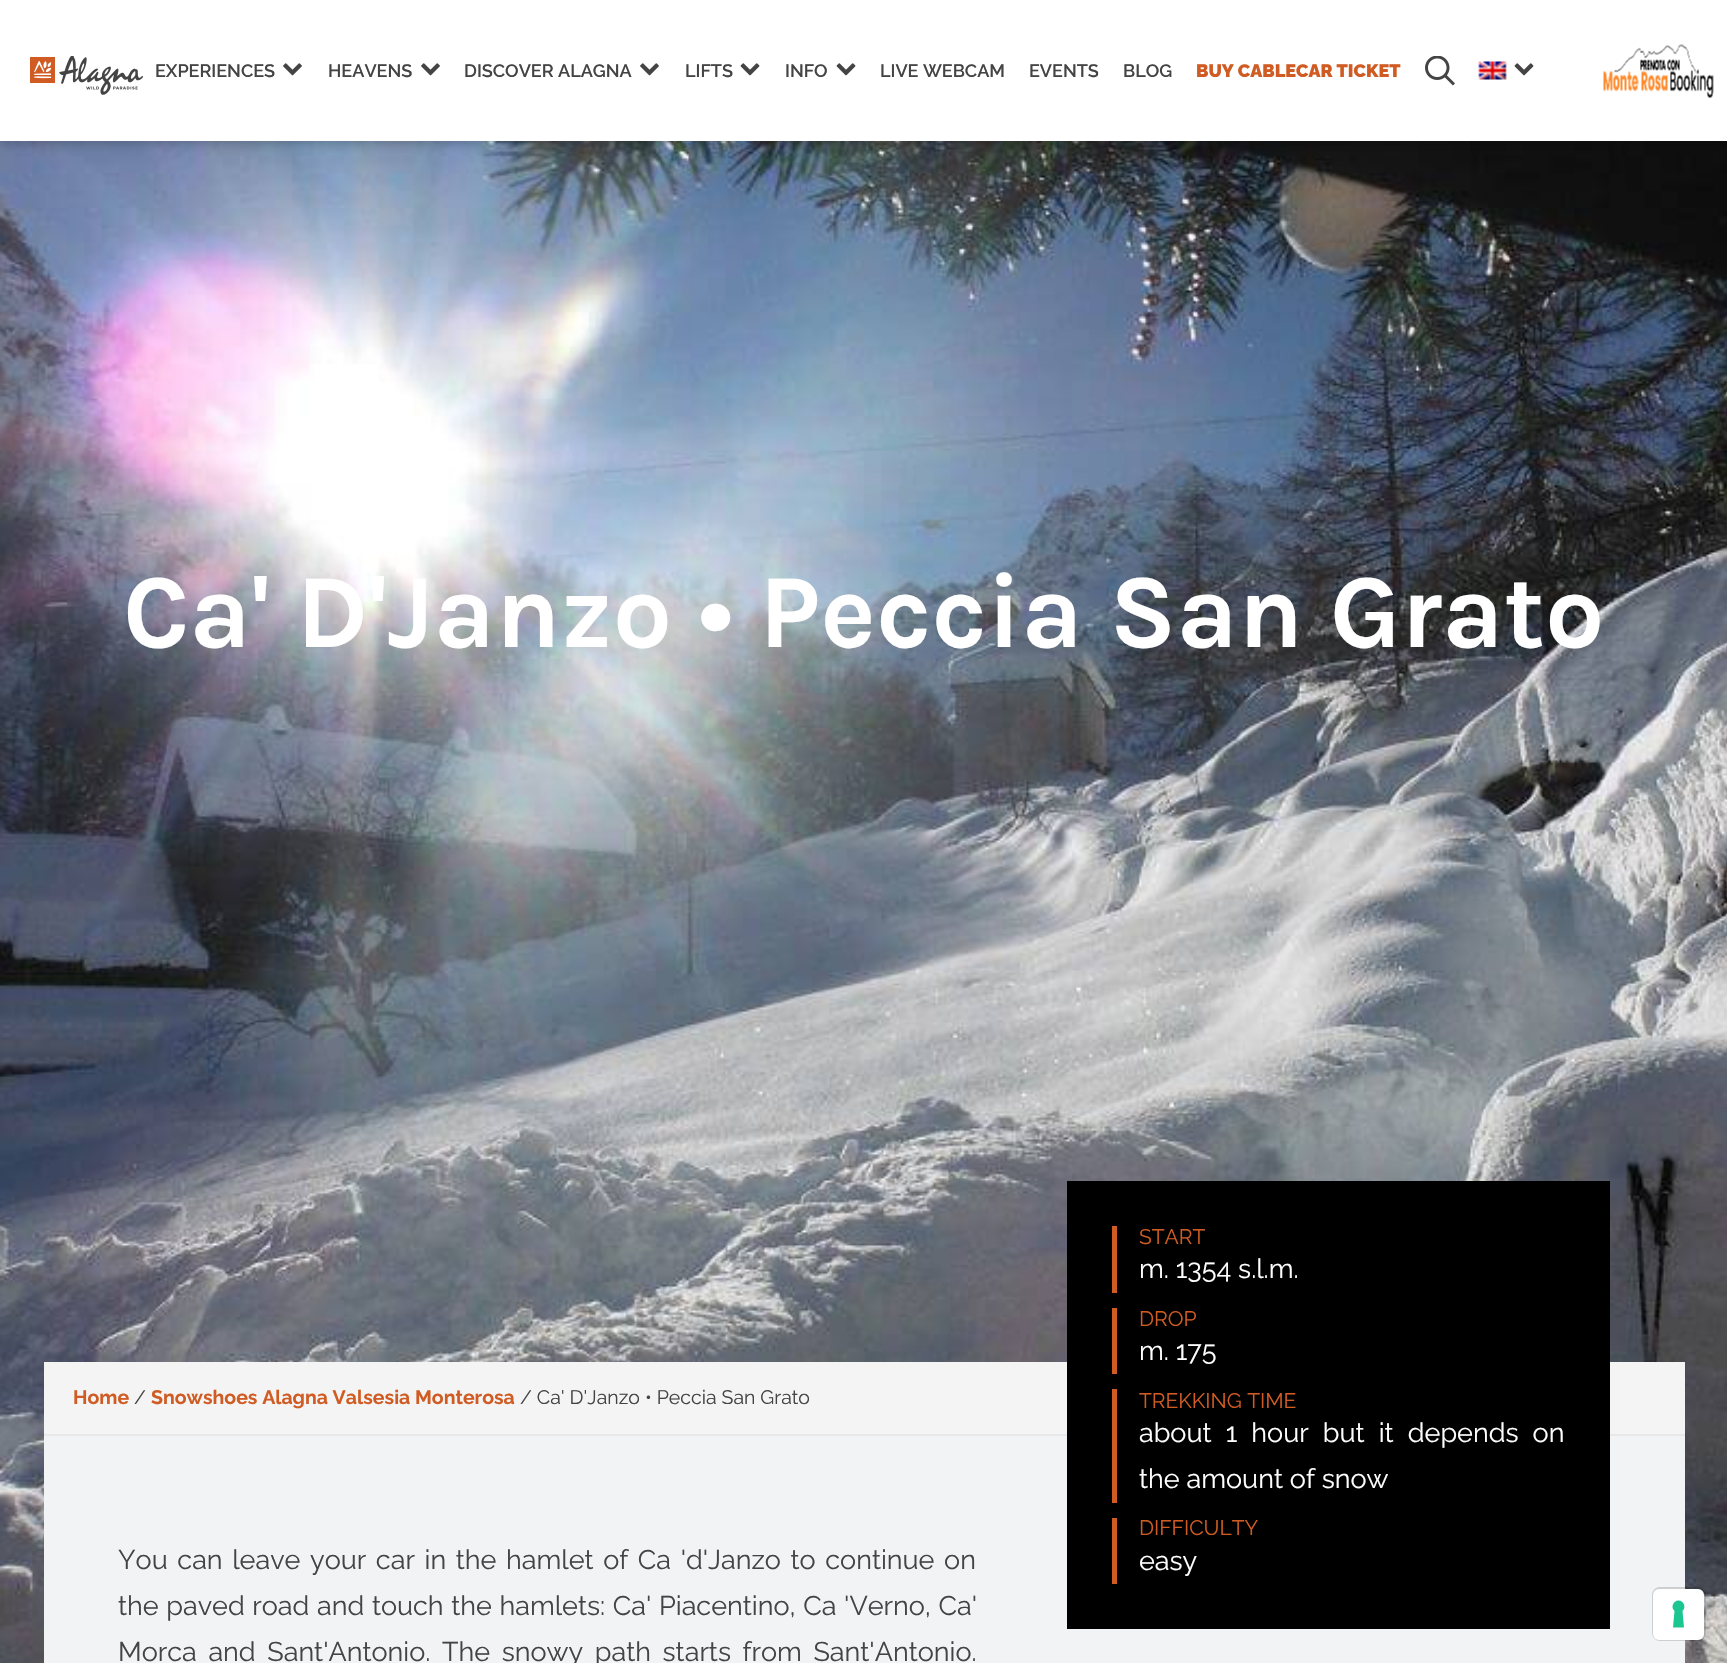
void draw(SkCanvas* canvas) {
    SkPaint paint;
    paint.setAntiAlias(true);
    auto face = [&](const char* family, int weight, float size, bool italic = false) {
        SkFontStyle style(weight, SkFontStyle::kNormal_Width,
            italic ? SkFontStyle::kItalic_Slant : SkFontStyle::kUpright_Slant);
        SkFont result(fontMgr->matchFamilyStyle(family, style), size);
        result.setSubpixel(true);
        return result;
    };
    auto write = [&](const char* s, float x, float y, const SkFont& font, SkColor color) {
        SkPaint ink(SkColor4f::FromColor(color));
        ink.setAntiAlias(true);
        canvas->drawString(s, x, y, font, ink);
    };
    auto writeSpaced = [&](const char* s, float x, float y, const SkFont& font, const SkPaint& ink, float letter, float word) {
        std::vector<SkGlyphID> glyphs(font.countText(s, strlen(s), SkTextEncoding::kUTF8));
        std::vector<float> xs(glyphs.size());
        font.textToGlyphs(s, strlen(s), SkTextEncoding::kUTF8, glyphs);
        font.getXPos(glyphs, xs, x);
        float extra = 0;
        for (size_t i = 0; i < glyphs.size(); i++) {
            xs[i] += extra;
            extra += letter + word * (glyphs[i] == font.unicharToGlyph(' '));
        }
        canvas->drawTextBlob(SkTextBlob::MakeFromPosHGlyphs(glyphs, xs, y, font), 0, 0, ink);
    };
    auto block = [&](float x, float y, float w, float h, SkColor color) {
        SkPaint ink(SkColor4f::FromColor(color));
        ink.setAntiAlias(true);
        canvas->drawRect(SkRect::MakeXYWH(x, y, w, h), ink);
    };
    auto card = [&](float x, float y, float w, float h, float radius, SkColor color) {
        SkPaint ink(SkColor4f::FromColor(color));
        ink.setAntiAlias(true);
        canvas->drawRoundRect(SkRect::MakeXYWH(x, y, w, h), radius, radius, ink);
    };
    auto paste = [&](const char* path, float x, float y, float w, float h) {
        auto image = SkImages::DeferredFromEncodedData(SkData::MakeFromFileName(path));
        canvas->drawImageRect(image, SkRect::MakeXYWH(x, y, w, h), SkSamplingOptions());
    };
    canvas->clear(SK_ColorWHITE);
    paste("pic7.png", 0, 141, 1727, 1522);
    paint.setColor(SkColorSetARGB(77, 0, 0, 0));
    paint.setMaskFilter(SkMaskFilter::MakeBlur(kNormal_SkBlurStyle, 7.5f));
    canvas->drawRect(SkRect::MakeXYWH(0, 0, 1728, 141), paint);
    paint.setMaskFilter(nullptr);
    block(0, 0, 1727, 141, SK_ColorWHITE);
    paste("pic1.png", 30, 56, 113, 39);
    auto kFont1 = face("Raleway", 600, 18);
    write("EXPERIENCES", 155, 77, kFont1, SkColorSetRGB(68, 68, 68));
    paste("pic2.png", 283, 63, 19, 13);
    write("HEAVENS", 328, 77, kFont1, SkColorSetRGB(68, 68, 68));
    paste("pic2.png", 421, 63, 19, 13);
    write("DISCOVER ALAGNA", 464, 77, kFont1, SkColorSetRGB(68, 68, 68));
    paste("pic2.png", 640, 63, 19, 13);
    write("LIFTS", 685, 77, kFont1, SkColorSetRGB(68, 68, 68));
    paste("pic3.png", 740, 63, 20, 13);
    write("INFO", 785, 77, kFont1, SkColorSetRGB(68, 68, 68));
    paste("pic3.png", 836, 63, 20, 13);
    write("LIVE WEBCAM", 880, 77, kFont1, SkColorSetRGB(68, 68, 68));
    write("EVENTS", 1029, 77, kFont1, SkColorSetRGB(68, 68, 68));
    write("BLOG", 1123, 77, kFont1, SkColorSetRGB(68, 68, 68));
    auto kFont2 = face("Raleway", 900, 18);
    write("BUY CABLECAR TICKET", 1196, 77, kFont2, SkColorSetRGB(208, 92, 35));
    paste("pic4.png", 1425, 56, 30, 30);
    paste("pic5.png", 1478, 61, 29, 19);
    paste("pic3.png", 1514, 63, 20, 13);
    paste("pic6.png", 1603, 44, 111, 54);
    auto kFont3 = face("Karla", 700, 105);
    write("Ca' D'Janzo • Peccia San Grato", 123, 647, kFont3, SK_ColorWHITE);
    block(44, 1436, 1641, 227, SkColorSetRGB(241, 243, 244));
    block(44, 1362, 1641, 72, SkColorSetRGB(244, 244, 244));
    block(44, 1434, 1641, 2, SkColorSetRGB(232, 232, 232));
    block(1067, 1181, 543, 448, SK_ColorBLACK);
    block(1112, 1226, 5, 67, SkColorSetRGB(208, 92, 35));
    auto kFont4 = face("Raleway", 400, 21);
    write("START", 1139, 1244, kFont4, SkColorSetRGB(208, 92, 35));
    auto kFont5 = face("Raleway", 400, 27);
    write("m. 1354 s.l.m.", 1139, 1278, kFont5, SK_ColorWHITE);
    block(1112, 1308, 5, 66, SkColorSetRGB(208, 92, 35));
    write("DROP", 1139, 1326, kFont4, SkColorSetRGB(208, 92, 35));
    write("m. 175", 1139, 1360, kFont5, SK_ColorWHITE);
    block(1112, 1389, 5, 114, SkColorSetRGB(208, 92, 35));
    write("TREKKING TIME", 1139, 1408, kFont4, SkColorSetRGB(208, 92, 35));
    paint.setColor(SK_ColorWHITE);
    writeSpaced("about 1 hour but it depends on", 1139, 1442, kFont5, paint, 0, 7.25f);
    write("the amount of snow", 1139, 1488, kFont5, SK_ColorWHITE);
    block(1112, 1518, 5, 66, SkColorSetRGB(208, 92, 35));
    write("DIFFICULTY", 1139, 1535, kFont4, SkColorSetRGB(208, 92, 35));
    write("easy", 1139, 1570, kFont5, SK_ColorWHITE);
    paint.setColor(SkColorSetRGB(68, 68, 68));
    writeSpaced("You can leave your car in the hamlet of Ca 'd'Janzo to continue on", 118, 1569, kFont5, paint, 0, 2.75f);
    writeSpaced("the paved road and touch the hamlets: Ca' Piacentino, Ca 'Verno, Ca'", 118, 1615, kFont5, paint, 0, 0.75f);
    writeSpaced("Morca and Sant'Antonio. The snowy path starts from Sant'Antonio.", 118, 1661, kFont5, paint, 0, 4.75f);
    auto kFont6 = face("Raleway", 700, 19.5f);
    write("Home", 73, 1404, kFont6, SkColorSetRGB(208, 92, 35));
    auto kFont7 = face("Raleway", 400, 19.5f);
    write("/", 134, 1404, kFont7, SkColorSetRGB(68, 68, 68));
    write("Snowshoes Alagna Valsesia Monterosa", 151, 1404, kFont6, SkColorSetRGB(208, 92, 35));
    write("/ Ca' D'Janzo • Peccia San Grato", 520, 1404, kFont7, SkColorSetRGB(68, 68, 68));
    paint.setStyle(SkPaint::kStroke_Style);
    paint.setStrokeWidth(2);
    paint.setColor(SkColorSetARGB(38, 0, 0, 0));
    canvas->drawRoundRect(SkRect::MakeXYWH(1653, 1588, 52, 52), 7, 7, paint);
    card(1653, 1589, 51, 51, 6, SK_ColorWHITE);
    paint.setStyle(SkPaint::kFill_Style);
    paint.setColor(SkColorSetRGB(28, 198, 145));
    canvas->drawPath(SkPathBuilder(SkPathFillType::kEvenOdd).moveTo(1678.5f, 1600.5f).cubicTo(1684, 1600.5f, 1686.5f, 1607.5f, 1682.5f, 1611).lineTo(1684, 1627.5f).lineTo(1673, 1627.5f).lineTo(1674.5f, 1611).cubicTo(1670.5f, 1607.5f, 1673, 1600.5f, 1678.5f, 1600.5f).close().detach(), paint);
}
